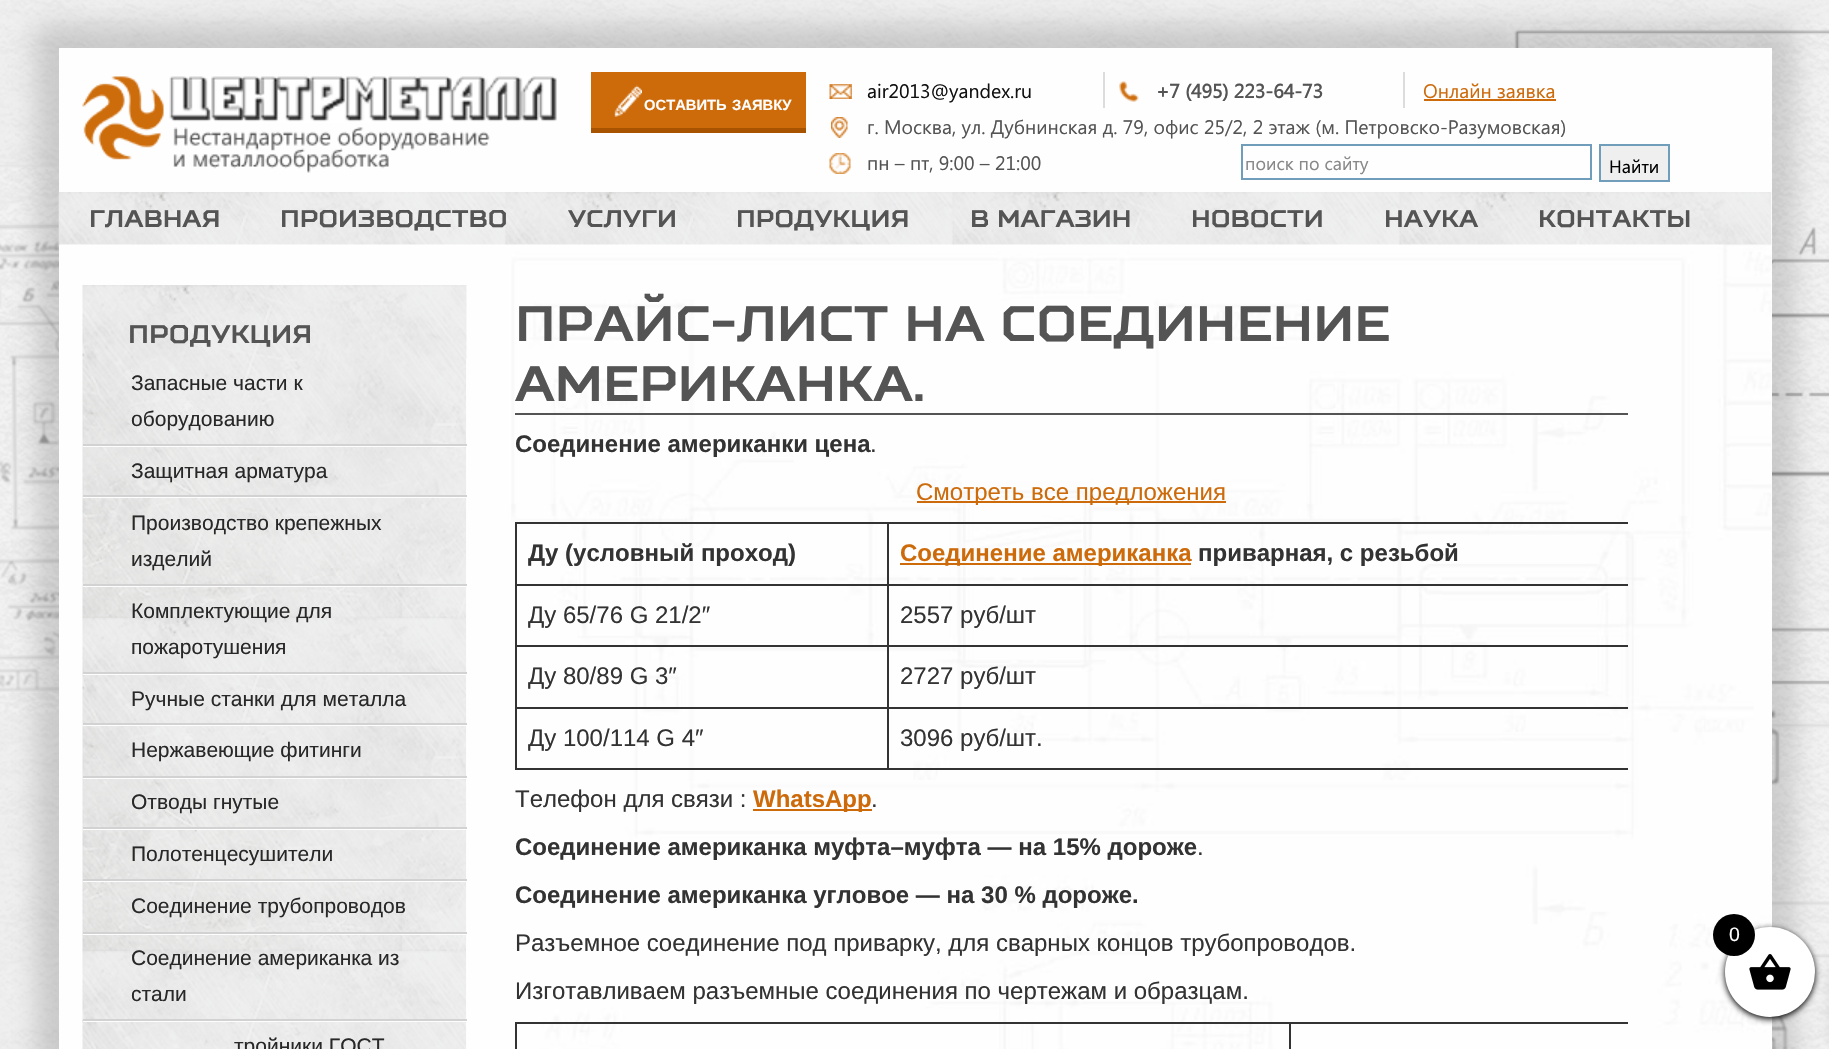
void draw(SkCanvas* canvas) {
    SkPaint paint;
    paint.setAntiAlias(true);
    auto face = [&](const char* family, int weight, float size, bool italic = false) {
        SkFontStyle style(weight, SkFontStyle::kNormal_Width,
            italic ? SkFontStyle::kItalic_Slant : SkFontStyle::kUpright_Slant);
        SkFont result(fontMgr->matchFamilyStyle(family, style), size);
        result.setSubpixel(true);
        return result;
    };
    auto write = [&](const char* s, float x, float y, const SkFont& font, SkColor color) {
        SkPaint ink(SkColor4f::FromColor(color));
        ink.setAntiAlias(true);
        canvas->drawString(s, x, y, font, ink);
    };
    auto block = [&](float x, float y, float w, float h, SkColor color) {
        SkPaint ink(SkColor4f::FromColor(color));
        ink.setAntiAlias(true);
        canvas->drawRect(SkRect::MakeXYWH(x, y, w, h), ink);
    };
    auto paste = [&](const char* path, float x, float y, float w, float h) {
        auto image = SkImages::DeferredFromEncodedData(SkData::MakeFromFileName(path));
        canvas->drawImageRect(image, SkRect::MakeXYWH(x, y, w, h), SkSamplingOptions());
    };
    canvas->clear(SK_ColorWHITE);
    paste("pic1.png", 0, 0, 1829, 1049);
    paint.setColor(SkColorSetARGB(38, 0, 0, 0));
    paint.setMaskFilter(SkMaskFilter::MakeBlur(kNormal_SkBlurStyle, 12));
    canvas->drawRect(SkRect::MakeXYWH(35, 24, 1761, 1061), paint);
    paint.setMaskFilter(nullptr);
    block(59, 48, 1713, 1001, SkColorSetRGB(254, 254, 254));
    paste("pic2.png", 511, 240, 1261, 809);
    paste("pic3.png", 82, 76, 475, 97);
    block(591, 72, 215, 56, SkColorSetRGB(205, 107, 11));
    paste("pic4.png", 614, 85, 28, 32);
    block(591, 128, 215, 5, SkColorSetRGB(168, 83, 0));
    auto kFont1 = face("Liberation Sans", 700, 14.75f);
    write("ОСТАВИТЬ", 644, 110, kFont1, SkColorSetRGB(254, 254, 254));
    write("ЗАЯВКУ", 732, 110, kFont1, SkColorSetRGB(254, 254, 254));
    paste("pic5.png", 829, 84, 23, 15);
    block(1103, 72, 2, 36, SkColorSetRGB(220, 220, 220));
    auto kFont2 = face("Segoe UI", 400, 19.5f);
    write("air2013@yandex.ru", 867, 98, kFont2, SkColorSetRGB(17, 17, 17));
    paste("pic6.png", 1119, 81, 20, 21);
    block(1403, 72, 2, 36, SkColorSetRGB(220, 220, 220));
    auto kFont3 = face("Segoe UI", 700, 19.5f);
    write("+7 (495) 223-64-73", 1156, 98, kFont3, SkColorSetRGB(84, 84, 84));
    write("Онлайн заявка", 1423, 98, kFont2, SkColorSetRGB(205, 107, 11));
    block(1424, 99, 132, 2, SkColorSetRGB(205, 107, 11));
    paste("pic7.png", 831, 117, 17, 21);
    write("г. Москва, ул. Дубнинская д. 79, офис 25/2, 2 этаж (м. Петровско-Разумовская)", 867, 134, kFont2, SkColorSetRGB(84, 84, 84));
    paste("pic8.png", 829, 153, 22, 21);
    write("пн – пт, 9:00 – 21:00", 867, 170, kFont2, SkColorSetRGB(84, 84, 84));
    paint.setStyle(SkPaint::kStroke_Style);
    paint.setStrokeWidth(2);
    paint.setColor(SkColorSetRGB(112, 157, 186));
    canvas->drawRect(SkRect::MakeXYWH(1242, 145, 349, 34), paint);
    auto kFont4 = face("Segoe UI", 400, 18);
    write("поиск по сайту", 1245, 170, kFont4, SkColorSetRGB(136, 136, 136));
    paint.setStyle(SkPaint::kFill_Style);
    paint.setColor(SkColorSetRGB(239, 239, 239));
    canvas->drawRect(SkRect::MakeXYWH(1600, 145, 69, 36), paint);
    paint.setStyle(SkPaint::kStroke_Style);
    paint.setColor(SkColorSetRGB(112, 157, 186));
    canvas->drawRect(SkRect::MakeXYWH(1600, 145, 69, 36), paint);
    write("Найти", 1609, 173, kFont4, SK_ColorBLACK);
    paste("pic9.png", 58, 192, 1714, 53);
    auto kFont5 = face("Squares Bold", 700, 24);
    write("Главная", 89, 227, kFont5, SkColorSetRGB(84, 84, 84));
    write("Производство", 280, 227, kFont5, SkColorSetRGB(84, 84, 84));
    write("Услуги", 568, 227, kFont5, SkColorSetRGB(84, 84, 84));
    write("Продукция", 736, 227, kFont5, SkColorSetRGB(84, 84, 84));
    write("В магазин", 970, 227, kFont5, SkColorSetRGB(84, 84, 84));
    write("Новости", 1191, 227, kFont5, SkColorSetRGB(84, 84, 84));
    write("Наука", 1384, 227, kFont5, SkColorSetRGB(84, 84, 84));
    write("Контакты", 1538, 227, kFont5, SkColorSetRGB(84, 84, 84));
    paste("pic10.png", 82, 285, 385, 764);
    auto kFont6 = face("Squares Bold", 700, 25.5f);
    write("Продукция", 128, 343, kFont6, SkColorSetRGB(84, 84, 84));
    paint.setStyle(SkPaint::kFill_Style);
    paint.setColor(SkColorSetRGB(253, 253, 253));
    canvas->drawPath(SkPathBuilder().moveTo(83, 446).lineTo(83, 447).lineTo(467, 447).lineTo(467, 359).lineTo(466, 359).lineTo(466, 446).close().detach(), paint);
    block(83, 444, 384, 2, SkColorSetRGB(210, 210, 210));
    auto kFont7 = face("Liberation Sans", 400, 21);
    write("Запасные части к", 131, 390, kFont7, SkColorSetRGB(40, 40, 40));
    write("оборудованию", 131, 426, kFont7, SkColorSetRGB(40, 40, 40));
    canvas->drawPath(SkPathBuilder().moveTo(83, 496).lineTo(83, 498).lineTo(467, 498).lineTo(467, 447).lineTo(466, 447).lineTo(466, 496).close().detach(), paint);
    block(83, 495, 384, 2, SkColorSetRGB(210, 210, 210));
    write("Защитная арматура", 131, 478, kFont7, SkColorSetRGB(40, 40, 40));
    canvas->drawPath(SkPathBuilder().moveTo(83, 585).lineTo(83, 587).lineTo(467, 587).lineTo(467, 498).lineTo(466, 498).lineTo(466, 585).close().detach(), paint);
    block(83, 584, 384, 2, SkColorSetRGB(210, 210, 210));
    write("Производство крепежных", 131, 530, kFont7, SkColorSetRGB(40, 40, 40));
    write("изделий", 131, 566, kFont7, SkColorSetRGB(40, 40, 40));
    canvas->drawPath(SkPathBuilder().moveTo(83, 674).lineTo(83, 675).lineTo(467, 675).lineTo(467, 587).lineTo(466, 587).lineTo(466, 674).close().detach(), paint);
    block(83, 672, 384, 2, SkColorSetRGB(210, 210, 210));
    write("Комплектующие для", 131, 618, kFont7, SkColorSetRGB(40, 40, 40));
    write("пожаротушения", 131, 654, kFont7, SkColorSetRGB(40, 40, 40));
    canvas->drawPath(SkPathBuilder().moveTo(83, 724).lineTo(83, 726).lineTo(467, 726).lineTo(467, 675).lineTo(466, 675).lineTo(466, 724).close().detach(), paint);
    block(83, 723, 384, 2, SkColorSetRGB(210, 210, 210));
    write("Ручные станки для металла", 131, 706, kFont7, SkColorSetRGB(40, 40, 40));
    canvas->drawPath(SkPathBuilder().moveTo(83, 777).lineTo(83, 779).lineTo(467, 779).lineTo(467, 726).lineTo(466, 726).lineTo(466, 777).close().detach(), paint);
    block(83, 776, 384, 2, SkColorSetRGB(210, 210, 210));
    write("Нержавеющие фитинги", 131, 757, kFont7, SkColorSetRGB(40, 40, 40));
    canvas->drawPath(SkPathBuilder().moveTo(83, 828).lineTo(83, 830).lineTo(467, 830).lineTo(467, 779).lineTo(466, 779).lineTo(466, 828).close().detach(), paint);
    block(83, 827, 384, 2, SkColorSetRGB(210, 210, 210));
    write("Отводы гнутые", 131, 809, kFont7, SkColorSetRGB(40, 40, 40));
    canvas->drawPath(SkPathBuilder().moveTo(83, 880).lineTo(83, 882).lineTo(467, 882).lineTo(467, 830).lineTo(466, 830).lineTo(466, 880).close().detach(), paint);
    block(83, 879, 384, 2, SkColorSetRGB(210, 210, 210));
    write("Полотенцесушители", 131, 861, kFont7, SkColorSetRGB(40, 40, 40));
    canvas->drawPath(SkPathBuilder().moveTo(83, 933).lineTo(83, 935).lineTo(467, 935).lineTo(467, 882).lineTo(466, 882).lineTo(466, 933).close().detach(), paint);
    block(83, 932, 384, 2, SkColorSetRGB(210, 210, 210));
    write("Соединение трубопроводов", 131, 913, kFont7, SkColorSetRGB(40, 40, 40));
    canvas->drawPath(SkPathBuilder().moveTo(83, 1020).lineTo(83, 1022).lineTo(467, 1022).lineTo(467, 935).lineTo(466, 935).lineTo(466, 1020).close().detach(), paint);
    block(83, 1019, 384, 2, SkColorSetRGB(210, 210, 210));
    write("Соединение американка из", 131, 965, kFont7, SkColorSetRGB(40, 40, 40));
    write("стали", 131, 1001, kFont7, SkColorSetRGB(40, 40, 40));
    canvas->drawPath(SkPathBuilder().moveTo(83, 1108).lineTo(83, 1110).lineTo(467, 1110).lineTo(467, 1022).lineTo(466, 1022).lineTo(466, 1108).close().detach(), paint);
    write("тройники ГОСТ", 234, 1053, kFont7, SkColorSetRGB(40, 40, 40));
    block(515, 413, 1113, 2, SkColorSetRGB(84, 84, 84));
    auto kFont8 = face("Squares Bold", 700, 49.5f);
    write("Прайс-лист на соединение", 515, 341, kFont8, SkColorSetRGB(84, 84, 84));
    write("американка.", 515, 401, kFont8, SkColorSetRGB(84, 84, 84));
    auto kFont9 = face("Liberation Sans", 700, 24);
    write("Соединение американки цена", 515, 452, kFont9, SkColorSetRGB(51, 51, 51));
    auto kFont10 = face("Liberation Sans", 400, 24);
    write(".", 870, 452, kFont10, SkColorSetRGB(51, 51, 51));
    block(917, 501, 309, 2, SkColorSetRGB(205, 107, 11));
    write("Смотреть все предложения", 916, 500, kFont10, SkColorSetRGB(205, 107, 11));
    block(887, 522, 741, 2, SkColorSetRGB(51, 51, 51));
    block(887, 584, 741, 2, SkColorSetRGB(51, 51, 51));
    block(887, 645, 741, 2, SkColorSetRGB(51, 51, 51));
    block(887, 707, 741, 2, SkColorSetRGB(51, 51, 51));
    block(887, 768, 741, 2, SkColorSetRGB(51, 51, 51));
    block(887, 707, 2, 63, SkColorSetRGB(51, 51, 51));
    block(515, 707, 373, 2, SkColorSetRGB(51, 51, 51));
    block(887, 645, 2, 63, SkColorSetRGB(51, 51, 51));
    block(515, 645, 373, 2, SkColorSetRGB(51, 51, 51));
    block(887, 584, 2, 63, SkColorSetRGB(51, 51, 51));
    block(515, 584, 373, 2, SkColorSetRGB(51, 51, 51));
    block(887, 522, 2, 63, SkColorSetRGB(51, 51, 51));
    block(515, 522, 373, 2, SkColorSetRGB(51, 51, 51));
    block(515, 768, 373, 2, SkColorSetRGB(51, 51, 51));
    block(515, 707, 2, 63, SkColorSetRGB(51, 51, 51));
    block(515, 645, 2, 63, SkColorSetRGB(51, 51, 51));
    block(515, 584, 2, 63, SkColorSetRGB(51, 51, 51));
    block(515, 522, 2, 63, SkColorSetRGB(51, 51, 51));
    write("Ду (условный проход)", 528, 561, kFont9, SkColorSetRGB(51, 51, 51));
    block(900, 563, 291, 2, SkColorSetRGB(205, 107, 11));
    write("Соединение американка", 900, 561, kFont9, SkColorSetRGB(205, 107, 11));
    write("приварная, с резьбой", 1198, 561, kFont9, SkColorSetRGB(51, 51, 51));
    write("Ду 65/76 G 21/2″", 528, 623, kFont10, SkColorSetRGB(51, 51, 51));
    write("2557 руб/шт", 900, 623, kFont10, SkColorSetRGB(51, 51, 51));
    write("Ду 80/89 G 3″", 528, 684, kFont10, SkColorSetRGB(51, 51, 51));
    write("2727 руб/шт", 900, 684, kFont10, SkColorSetRGB(51, 51, 51));
    write("Ду 100/114 G 4″", 528, 746, kFont10, SkColorSetRGB(51, 51, 51));
    write("3096 руб/шт.", 900, 746, kFont10, SkColorSetRGB(51, 51, 51));
    write("Телефон для связи :", 515, 807, kFont10, SkColorSetRGB(51, 51, 51));
    block(753, 809, 119, 2, SkColorSetRGB(205, 107, 11));
    write("WhatsApp", 753, 807, kFont9, SkColorSetRGB(205, 107, 11));
    write(".", 871, 807, kFont10, SkColorSetRGB(51, 51, 51));
    write("Соединение американка муфта–муфта — на 15% дороже", 515, 855, kFont9, SkColorSetRGB(51, 51, 51));
    write(".", 1197, 855, kFont10, SkColorSetRGB(51, 51, 51));
    write("Соединение американка угловое — на 30 % дороже.", 515, 903, kFont9, SkColorSetRGB(51, 51, 51));
    write("Разъемное соединение под приварку, для сварных концов трубопроводов.", 515, 951, kFont10, SkColorSetRGB(51, 51, 51));
    write("Изготавливаем разъемные соединения по чертежам и образцам.", 515, 999, kFont10, SkColorSetRGB(51, 51, 51));
    block(1289, 1022, 339, 2, SkColorSetRGB(51, 51, 51));
    block(1289, 1022, 2, 27, SkColorSetRGB(51, 51, 51));
    block(515, 1022, 775, 2, SkColorSetRGB(51, 51, 51));
    block(515, 1022, 2, 27, SkColorSetRGB(51, 51, 51));
    paint.setColor(SK_ColorBLACK);
    paint.setMaskFilter(SkMaskFilter::MakeBlur(kNormal_SkBlurStyle, 3));
    canvas->drawRoundRect(SkRect::MakeXYWH(1725, 929, 90, 90), 45, 45, paint);
    paint.setMaskFilter(nullptr);
    paint.setColor(SkColorSetARGB(26, 0, 0, 0));
    paint.setMaskFilter(SkMaskFilter::MakeBlur(kNormal_SkBlurStyle, 7.5f));
    canvas->drawRect(SkRect::MakeXYWH(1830, 965, 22, 78), paint);
    paint.setMaskFilter(nullptr);
    paint.setColor(SK_ColorWHITE);
    canvas->drawCircle(1770, 972, 45, paint);
    paste("pic11.png", 1749, 954, 42, 36);
    paint.setColor(SK_ColorBLACK);
    canvas->drawCircle(1734, 935, 21, paint);
    auto kFont11 = face("Liberation Sans", 400, 19.5f);
    write("0", 1729, 941, kFont11, SkColorSetRGB(254, 254, 254));
}
